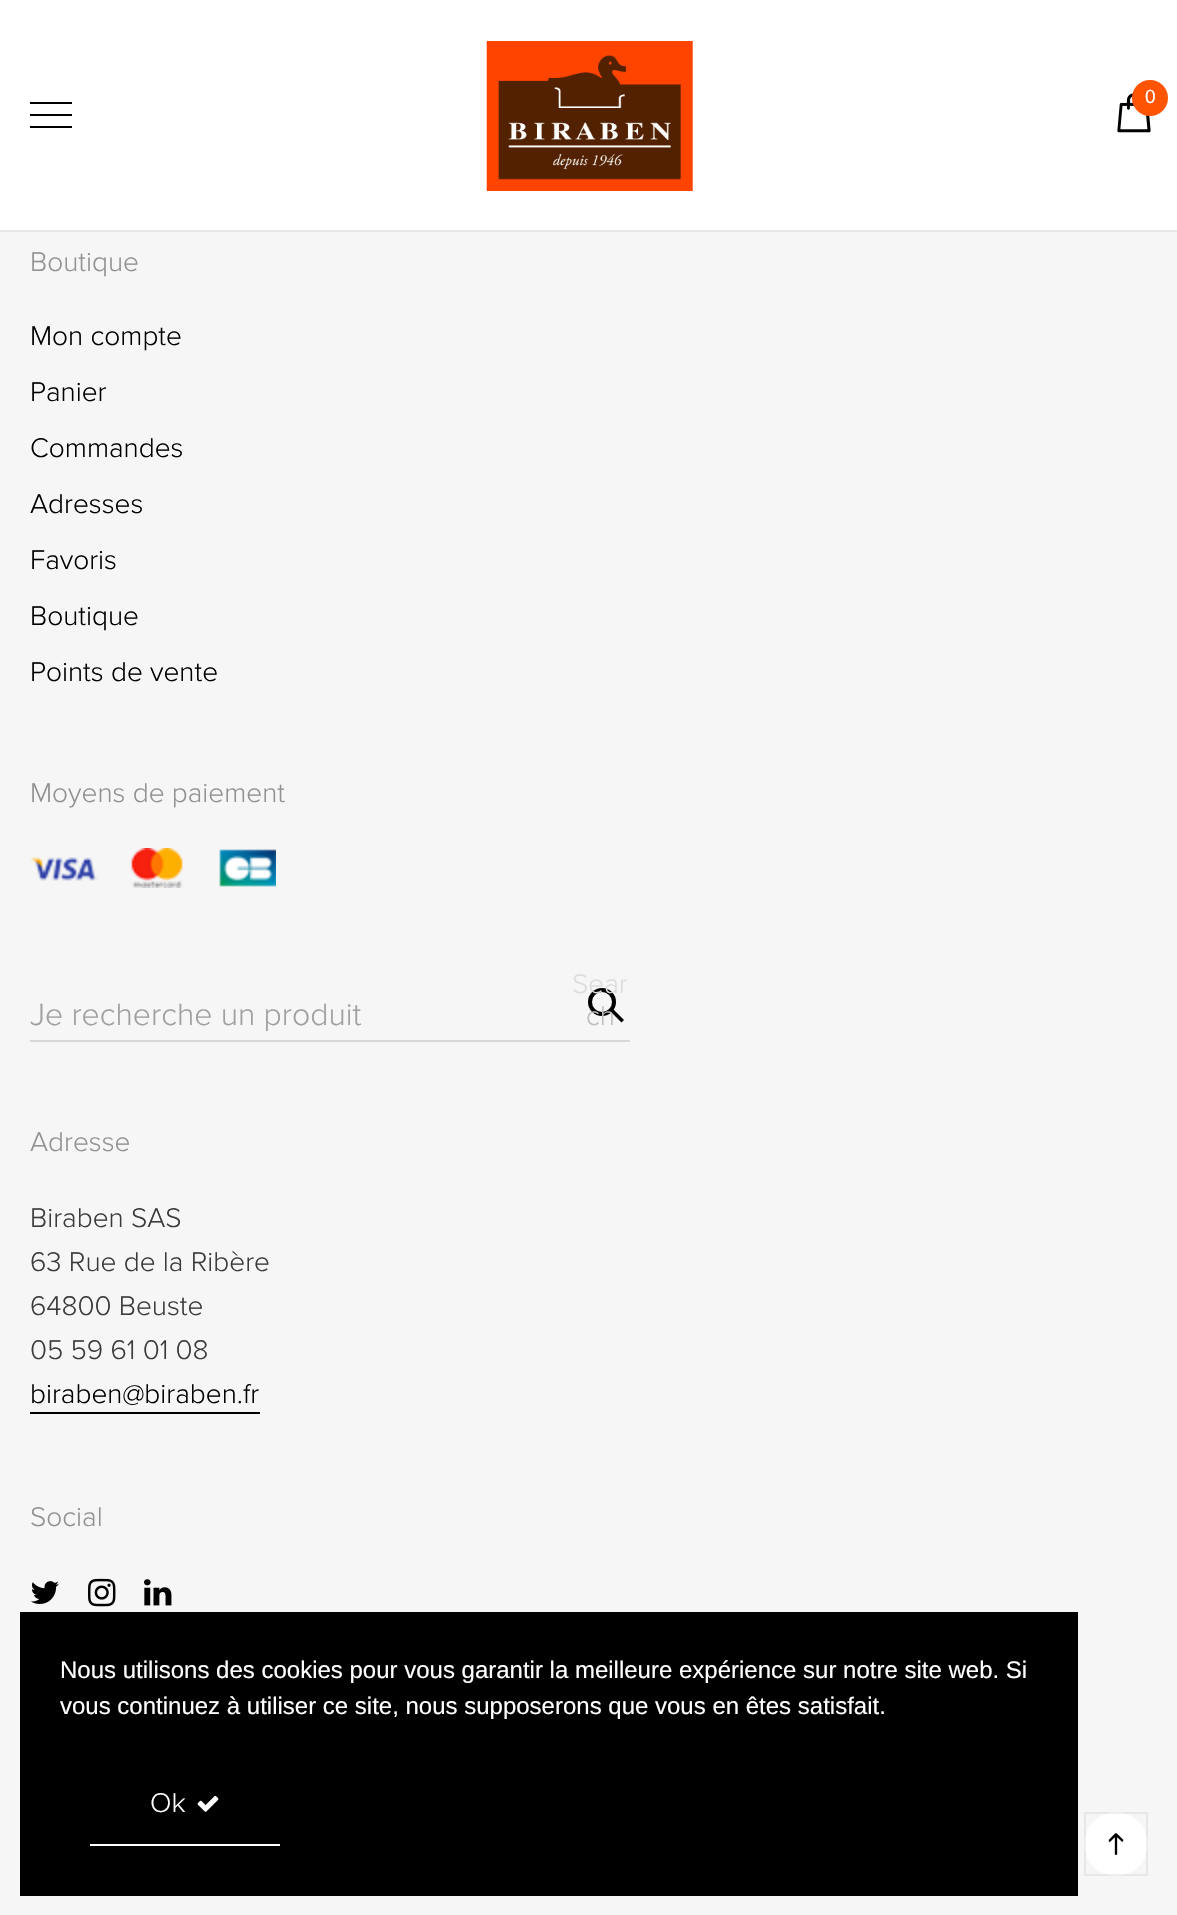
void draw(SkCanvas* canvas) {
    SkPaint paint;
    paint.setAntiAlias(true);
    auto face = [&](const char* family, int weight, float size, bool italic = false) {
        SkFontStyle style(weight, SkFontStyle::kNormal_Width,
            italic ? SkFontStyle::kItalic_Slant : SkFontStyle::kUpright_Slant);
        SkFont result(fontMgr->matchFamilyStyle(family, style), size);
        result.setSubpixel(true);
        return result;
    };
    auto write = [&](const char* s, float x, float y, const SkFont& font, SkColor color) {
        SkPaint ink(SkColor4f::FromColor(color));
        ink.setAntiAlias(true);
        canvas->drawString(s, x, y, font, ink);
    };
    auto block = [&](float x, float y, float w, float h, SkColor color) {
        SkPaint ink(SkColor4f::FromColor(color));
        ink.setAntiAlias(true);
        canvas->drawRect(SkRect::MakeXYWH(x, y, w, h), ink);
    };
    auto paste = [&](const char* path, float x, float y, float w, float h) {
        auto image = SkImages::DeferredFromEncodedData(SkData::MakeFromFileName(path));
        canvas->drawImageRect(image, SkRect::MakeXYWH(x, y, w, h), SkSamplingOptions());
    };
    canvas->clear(SkColorSetRGB(246, 246, 246));
    block(0, 230, 1177, 2, SkColorSetRGB(231, 231, 231));
    block(0, 0, 1177, 230, SK_ColorWHITE);
    paste("pic1.png", 486, 41, 207, 150);
    paste("pic2.png", 1117, 93, 34, 40);
    paint.setColor(SkColorSetRGB(255, 84, 2));
    canvas->drawCircle(1150, 98, 18, paint);
    auto kFont1 = face("Liberation Sans", 400, 19);
    write("0", 1145, 103, kFont1, SK_ColorWHITE);
    block(30, 114, 42, 2, SK_ColorBLACK);
    block(30, 102, 42, 2, SK_ColorBLACK);
    block(30, 126, 42, 2, SK_ColorBLACK);
    auto kFont2 = face("Proxima Nova", 300, 28);
    write("Boutique", 30, 271, kFont2, SkColorSetRGB(145, 145, 145));
    write("Mon compte", 30, 345, kFont2, SK_ColorBLACK);
    write("Panier", 30, 401, kFont2, SK_ColorBLACK);
    write("Commandes", 30, 457, kFont2, SK_ColorBLACK);
    write("Adresses", 30, 513, kFont2, SK_ColorBLACK);
    write("Favoris", 30, 569, kFont2, SK_ColorBLACK);
    write("Boutique", 30, 625, kFont2, SK_ColorBLACK);
    write("Points de vente", 30, 681, kFont2, SK_ColorBLACK);
    write("Moyens de paiement", 30, 802, kFont2, SkColorSetRGB(145, 145, 145));
    paste("pic3.png", 30, 848, 246, 40);
    paint.setStyle(SkPaint::kStroke_Style);
    paint.setStrokeWidth(4);
    paint.setColor(SK_ColorBLACK);
    canvas->drawCircle(602, 1002, 12, paint);
    write("Sear", 572, 993, kFont2, SkColorSetRGB(220, 220, 220));
    paint.setStyle(SkPaint::kFill_Style);
    canvas->drawPath(SkPathBuilder().moveTo(610.5f, 1011.5f).lineTo(613, 1009).lineTo(624, 1020).lineTo(621.5f, 1022.5f).close().detach(), paint);
    write("ch", 586, 1025, kFont2, SkColorSetRGB(190, 190, 190));
    block(30, 1040, 600, 2, SkColorSetRGB(216, 216, 216));
    auto kFont3 = face("Proxima Nova", 300, 32);
    write("Je recherche un produit", 30, 1025, kFont3, SkColorSetRGB(160, 160, 160));
    write("Adresse", 30, 1151, kFont2, SkColorSetRGB(145, 145, 145));
    write("Biraben SAS", 30, 1227, kFont2, SkColorSetRGB(59, 59, 59));
    write("63 Rue de la Ribère", 30, 1271, kFont2, SkColorSetRGB(59, 59, 59));
    write("64800 Beuste", 30, 1315, kFont2, SkColorSetRGB(59, 59, 59));
    write("05 59 61 01 08", 30, 1359, kFont2, SkColorSetRGB(59, 59, 59));
    write("biraben@biraben.fr", 30, 1403, kFont2, SK_ColorBLACK);
    block(30, 1412, 230, 2, SK_ColorBLACK);
    write("Social", 30, 1526, kFont2, SkColorSetRGB(145, 145, 145));
    paste("pic4.png", 31, 1581, 28, 23);
    paste("pic5.png", 88, 1578, 28, 29);
    paste("pic6.png", 144, 1579, 28, 27);
    paint.setColor(SK_ColorWHITE);
    canvas->drawCircle(1116, 1844, 32, paint);
    paint.setStyle(SkPaint::kStroke_Style);
    paint.setStrokeWidth(2);
    paint.setColor(SkColorSetARGB(15, 0, 0, 0));
    canvas->drawRect(SkRect::MakeXYWH(1085, 1813, 62, 62), paint);
    paste("pic7.png", 1108, 1833, 16, 22);
    block(20, 1612, 1058, 284, SK_ColorBLACK);
    auto kFont4 = face("Liberation Sans", 400, 24);
    write("Nous utilisons des cookies pour vous garantir la meilleure expérience sur notre site web. Si", 60, 1678, kFont4, SK_ColorWHITE);
    write("vous continuez à utiliser ce site, nous supposerons que vous en êtes satisfait.", 60, 1714, kFont4, SK_ColorWHITE);
    block(90, 1844, 190, 2, SK_ColorWHITE);
    write("Ok", 150, 1812, kFont2, SK_ColorWHITE);
    paste("pic8.png", 197, 1795, 22, 17);
}
